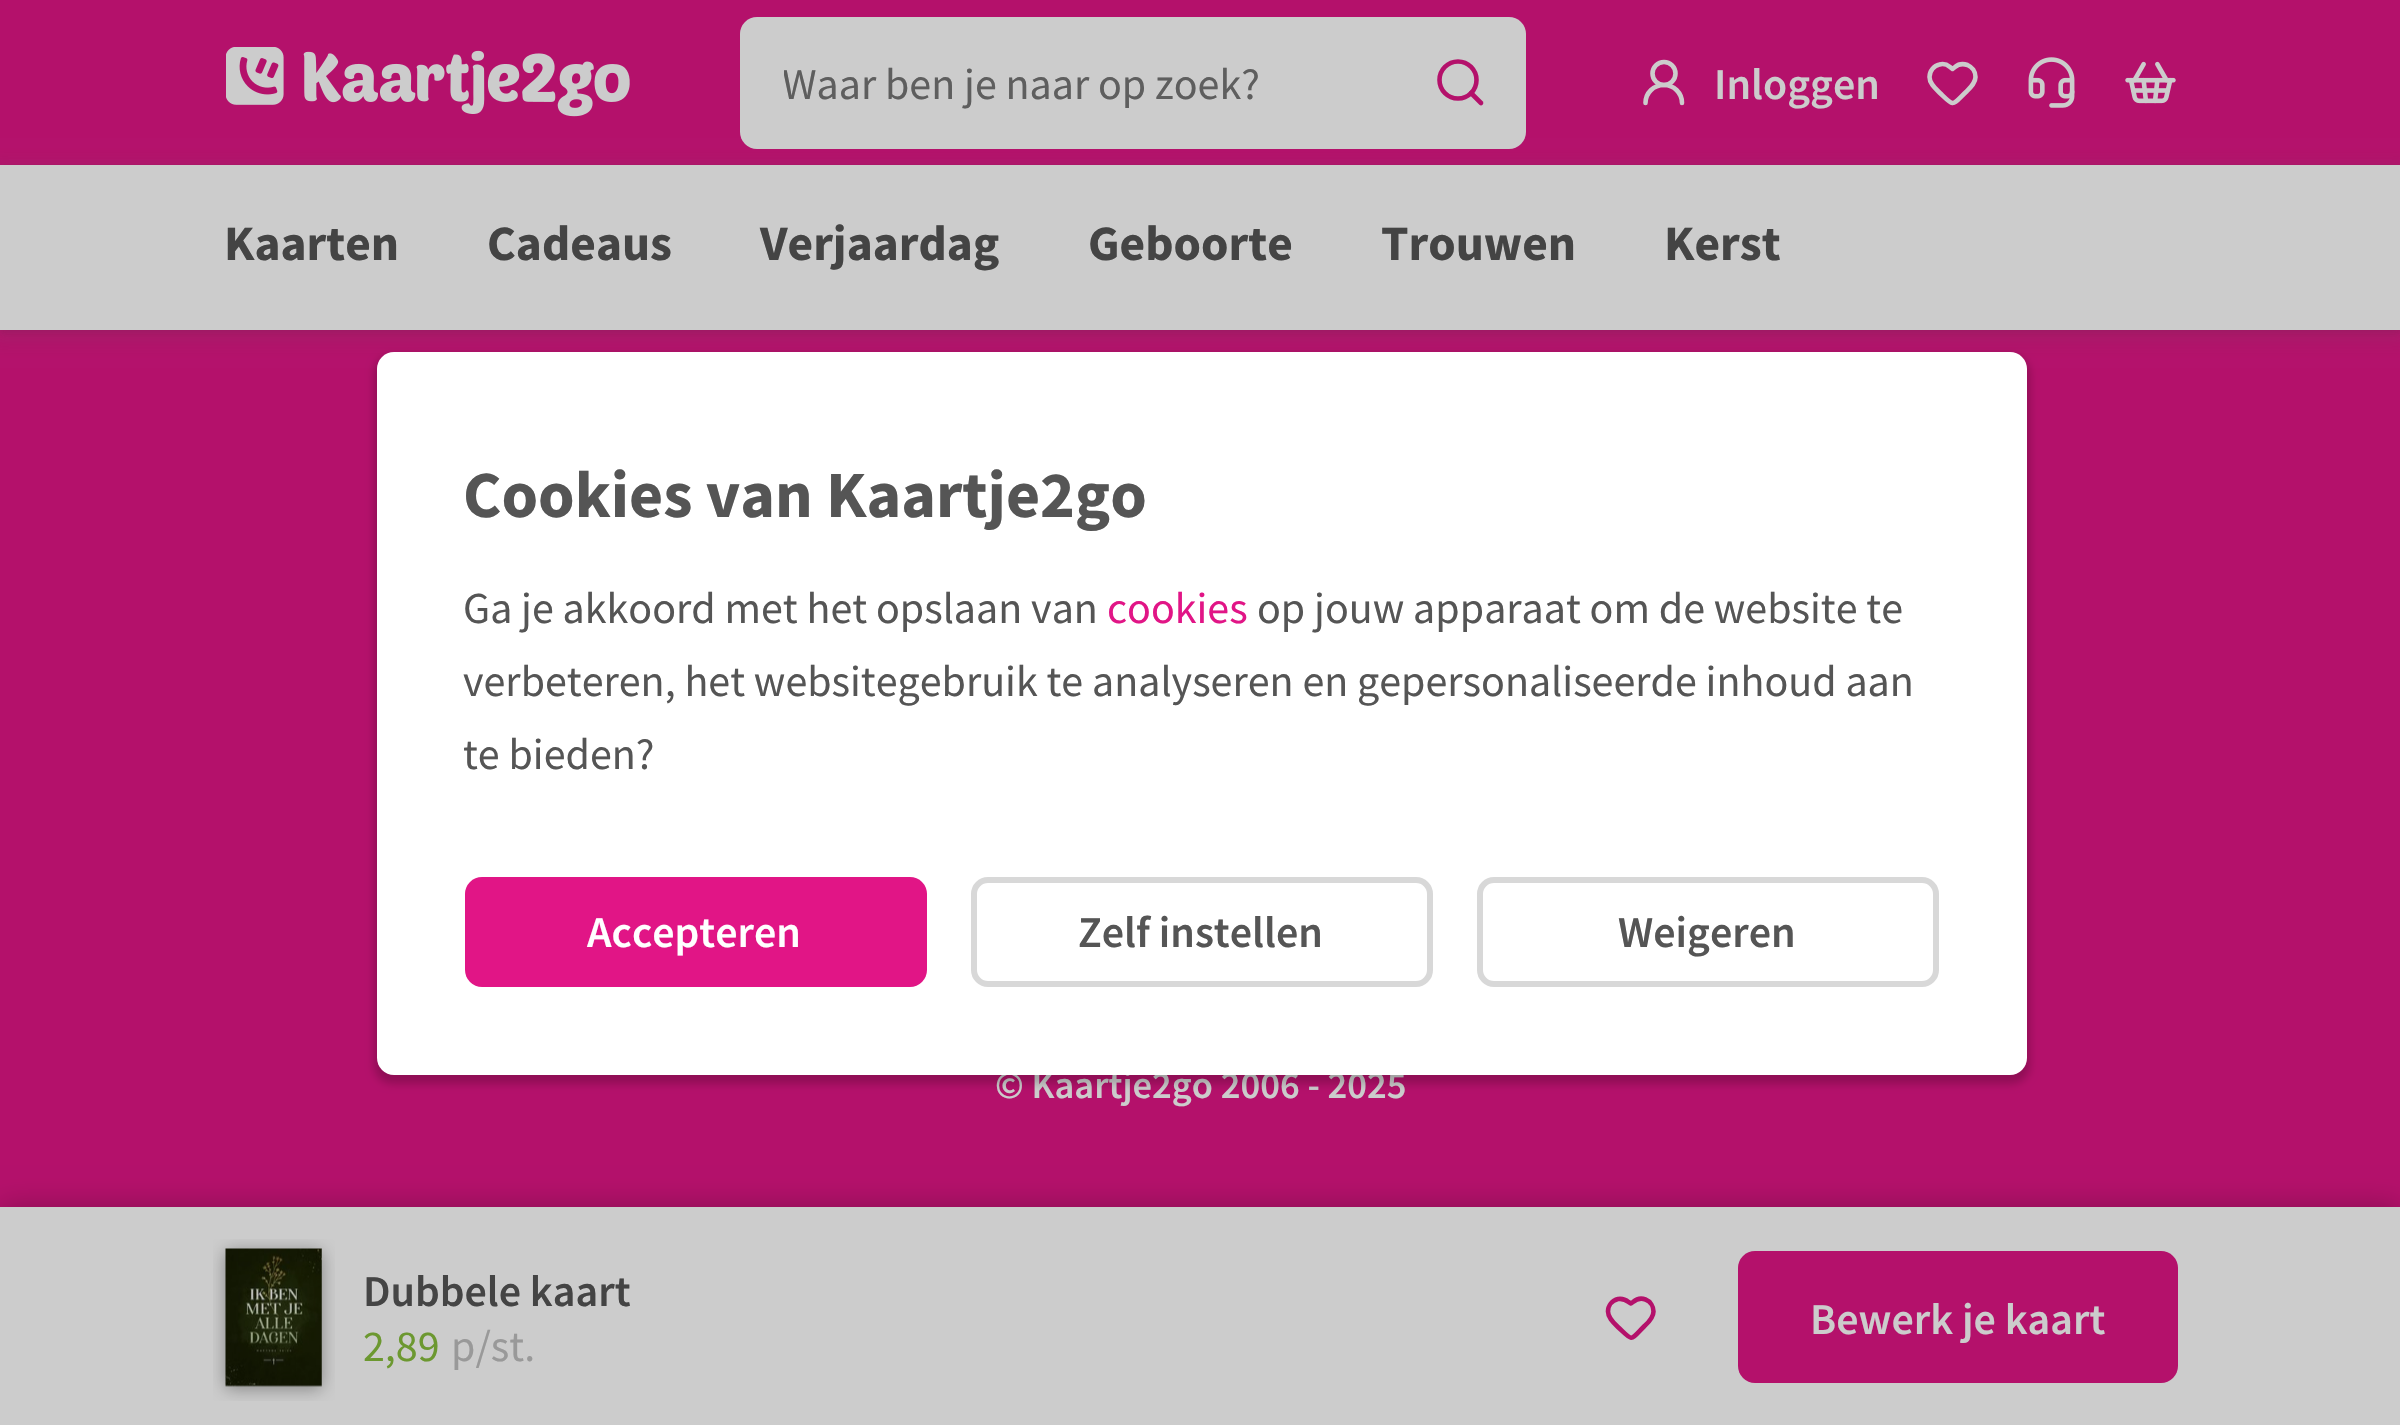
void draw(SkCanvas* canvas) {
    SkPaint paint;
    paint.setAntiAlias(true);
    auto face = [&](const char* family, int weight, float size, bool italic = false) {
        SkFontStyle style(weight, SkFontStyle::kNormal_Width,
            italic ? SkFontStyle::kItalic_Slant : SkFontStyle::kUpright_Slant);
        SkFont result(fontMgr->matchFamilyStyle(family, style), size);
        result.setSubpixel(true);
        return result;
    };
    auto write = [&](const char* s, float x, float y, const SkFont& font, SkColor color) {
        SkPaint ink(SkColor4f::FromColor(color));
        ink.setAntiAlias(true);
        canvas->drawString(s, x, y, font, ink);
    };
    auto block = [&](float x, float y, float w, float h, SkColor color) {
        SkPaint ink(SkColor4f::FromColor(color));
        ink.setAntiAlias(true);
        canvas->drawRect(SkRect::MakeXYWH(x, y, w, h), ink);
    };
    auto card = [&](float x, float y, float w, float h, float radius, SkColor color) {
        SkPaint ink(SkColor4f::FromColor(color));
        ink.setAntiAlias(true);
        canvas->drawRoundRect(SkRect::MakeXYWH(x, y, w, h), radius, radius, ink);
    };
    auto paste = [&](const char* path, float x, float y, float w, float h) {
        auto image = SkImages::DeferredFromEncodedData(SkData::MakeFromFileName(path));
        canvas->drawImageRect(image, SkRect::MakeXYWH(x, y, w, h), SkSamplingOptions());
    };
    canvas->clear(SkColorSetRGB(180, 17, 107));
    paste("pic1.png", 226, 47, 404, 70);
    paint.setColor(SkColorSetARGB(26, 79, 79, 79));
    paint.setMaskFilter(SkMaskFilter::MakeBlur(kNormal_SkBlurStyle, 8));
    canvas->drawRect(SkRect::MakeXYWH(-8, 162, 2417, 182), paint);
    paint.setMaskFilter(nullptr);
    card(740, 17, 786, 132, 17, SkColorSetRGB(204, 204, 204));
    canvas->save();
    canvas->clipRect(SkRect::MakeXYWH(784, 55, 588, 55));
    auto kFont1 = face("Source Sans Pro", 400, 44);
    write("Waar ben je naar op zoek?", 782, 99, kFont1, SkColorSetRGB(94, 94, 94));
    canvas->restore();
    paint.setStyle(SkPaint::kStroke_Style);
    paint.setStrokeWidth(4.6f);
    paint.setStrokeCap(SkPaint::kRound_Cap);
    paint.setStrokeJoin(SkPaint::kRound_Join);
    paint.setColor(SkColorSetRGB(180, 17, 107));
    canvas->drawPath(SkPathBuilder().moveTo(1481, 103).lineTo(1471, 93).detach(), paint);
    paint.setStrokeCap(SkPaint::kButt_Cap);
    paint.setStrokeJoin(SkPaint::kMiter_Join);
    canvas->drawCircle(1458, 80, 18.5f, paint);
    paint.setColor(SkColorSetRGB(204, 204, 204));
    canvas->drawCircle(1664, 73.5f, 11.5f, paint);
    paint.setStrokeCap(SkPaint::kRound_Cap);
    paint.setStrokeJoin(SkPaint::kRound_Join);
    canvas->drawPath(SkPathBuilder().moveTo(1682, 103).cubicTo(1682, 93, 1674, 85, 1664, 85).cubicTo(1653.5f, 85, 1645.5f, 93, 1645.5f, 103).detach(), paint);
    auto kFont2 = face("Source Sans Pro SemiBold", 600, 44);
    write("Inloggen", 1714, 99, kFont2, SkColorSetRGB(204, 204, 204));
    canvas->drawPath(SkPathBuilder().moveTo(1929.5f, 77).cubicTo(1929.5f, 71, 1934, 65.5f, 1939.5f, 64.5f).cubicTo(1943, 63.5f, 1947, 64.5f, 1950, 67).lineTo(1952.5f, 69).lineTo(1955, 67).cubicTo(1958.5f, 64, 1963, 63.5f, 1967.5f, 65).cubicTo(1972, 67, 1975.5f, 71.5f, 1975.5f, 77).cubicTo(1975.5f, 83, 1970.5f, 87.5f, 1966.5f, 91.5f).cubicTo(1951.5f, 105.5f, 1955, 107.5f, 1940.5f, 93.5f).cubicTo(1936, 89, 1929.5f, 84, 1929.5f, 77).detach(), paint);
    paste("pic2.png", 2028, 57, 47, 51);
    paste("pic3.png", 2125, 61, 51, 43);
    paint.setStyle(SkPaint::kFill_Style);
    paint.setColor(SkColorSetARGB(26, 53, 53, 53));
    paint.setMaskFilter(SkMaskFilter::MakeBlur(kNormal_SkBlurStyle, 3));
    canvas->drawRect(SkRect::MakeXYWH(0, 168, 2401, 165), paint);
    paint.setMaskFilter(nullptr);
    block(0, 165, 2400, 165, SkColorSetRGB(204, 204, 204));
    auto kFont3 = face("Source Sans Pro", 700, 49.5f);
    write("Kaarten", 224, 260, kFont3, SkColorSetRGB(68, 68, 68));
    write("Cadeaus", 487, 260, kFont3, SkColorSetRGB(68, 68, 68));
    write("Verjaardag", 760, 260, kFont3, SkColorSetRGB(68, 68, 68));
    write("Geboorte", 1088, 260, kFont3, SkColorSetRGB(68, 68, 68));
    write("Trouwen", 1381, 260, kFont3, SkColorSetRGB(68, 68, 68));
    write("Kerst", 1664, 260, kFont3, SkColorSetRGB(68, 68, 68));
    auto kFont4 = face("Source Sans Pro SemiBold", 600, 38.5f);
    write("© Kaartje2go 2006 - 2025", 995, 1098, kFont4, SkColorSetRGB(204, 204, 204));
    paint.setColor(SkColorSetARGB(64, 0, 0, 0));
    paint.setMaskFilter(SkMaskFilter::MakeBlur(kNormal_SkBlurStyle, 14));
    canvas->drawRect(SkRect::MakeXYWH(0, 1207, 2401, 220), paint);
    paint.setMaskFilter(nullptr);
    block(0, 1207, 2400, 218, SkColorSetRGB(204, 204, 204));
    paste("pic4.png", 213, 1239, 122, 162);
    write("Dubbele kaart", 363, 1306, kFont2, SkColorSetRGB(68, 68, 68));
    write("2,89", 363, 1361, kFont1, SkColorSetRGB(108, 152, 48));
    write("p/st.", 451, 1361, kFont1, SkColorSetRGB(153, 153, 153));
    paint.setStyle(SkPaint::kStroke_Style);
    paint.setColor(SkColorSetRGB(180, 17, 107));
    canvas->drawPath(SkPathBuilder().moveTo(1608, 1311.5f).cubicTo(1608, 1305.5f, 1612, 1300.5f, 1618, 1299).cubicTo(1621.5f, 1298.5f, 1625.5f, 1299.5f, 1628.5f, 1302).lineTo(1631, 1303.5f).lineTo(1633, 1302).cubicTo(1636.5f, 1299, 1641.5f, 1298, 1645.5f, 1299.5f).cubicTo(1650.5f, 1301.5f, 1653.5f, 1306.5f, 1653.5f, 1311.5f).cubicTo(1653.5f, 1317.5f, 1649, 1322, 1644.5f, 1326).cubicTo(1630, 1340.5f, 1633.5f, 1342, 1619, 1328).cubicTo(1614.5f, 1323.5f, 1608, 1318.5f, 1608, 1311.5f).detach(), paint);
    card(1738, 1251, 440, 132, 17, SkColorSetRGB(180, 17, 107));
    write("Bewerk je kaart", 1810, 1334, kFont2, SkColorSetRGB(204, 204, 204));
    paint.setStyle(SkPaint::kFill_Style);
    paint.setColor(SkColorSetARGB(51, 0, 0, 0));
    paint.setMaskFilter(SkMaskFilter::MakeBlur(kNormal_SkBlurStyle, 4));
    canvas->drawRoundRect(SkRect::MakeXYWH(374, 355, 1656, 729), 19, 19, paint);
    paint.setMaskFilter(nullptr);
    card(377, 352, 1650, 723, 17, SK_ColorWHITE);
    auto kFont5 = face("Source Sans Pro", 700, 66);
    write("Cookies van Kaartje2go", 463, 517, kFont5, SkColorSetRGB(85, 85, 85));
    write("Ga je akkoord met het opslaan van", 463, 623, kFont1, SkColorSetRGB(85, 85, 85));
    write("cookies", 1107, 623, kFont1, SkColorSetRGB(225, 21, 134));
    write("op jouw apparaat om de website te", 1257, 623, kFont1, SkColorSetRGB(85, 85, 85));
    write("verbeteren, het websitegebruik te analyseren en gepersonaliseerde inhoud aan", 463, 696, kFont1, SkColorSetRGB(85, 85, 85));
    write("te bieden?", 463, 769, kFont1, SkColorSetRGB(85, 85, 85));
    card(465, 877, 462, 110, 17, SkColorSetRGB(225, 21, 134));
    write("Accepteren", 587, 947, kFont2, SK_ColorWHITE);
    paint.setStyle(SkPaint::kStroke_Style);
    paint.setStrokeWidth(6);
    paint.setStrokeCap(SkPaint::kButt_Cap);
    paint.setStrokeJoin(SkPaint::kMiter_Join);
    paint.setColor(SkColorSetRGB(216, 216, 216));
    canvas->drawRoundRect(SkRect::MakeXYWH(974, 880, 456, 104), 14, 14, paint);
    write("Zelf instellen", 1078, 947, kFont2, SkColorSetRGB(85, 85, 85));
    canvas->drawRoundRect(SkRect::MakeXYWH(1480, 880, 456, 104), 14, 14, paint);
    write("Weigeren", 1618, 947, kFont2, SkColorSetRGB(85, 85, 85));
}
